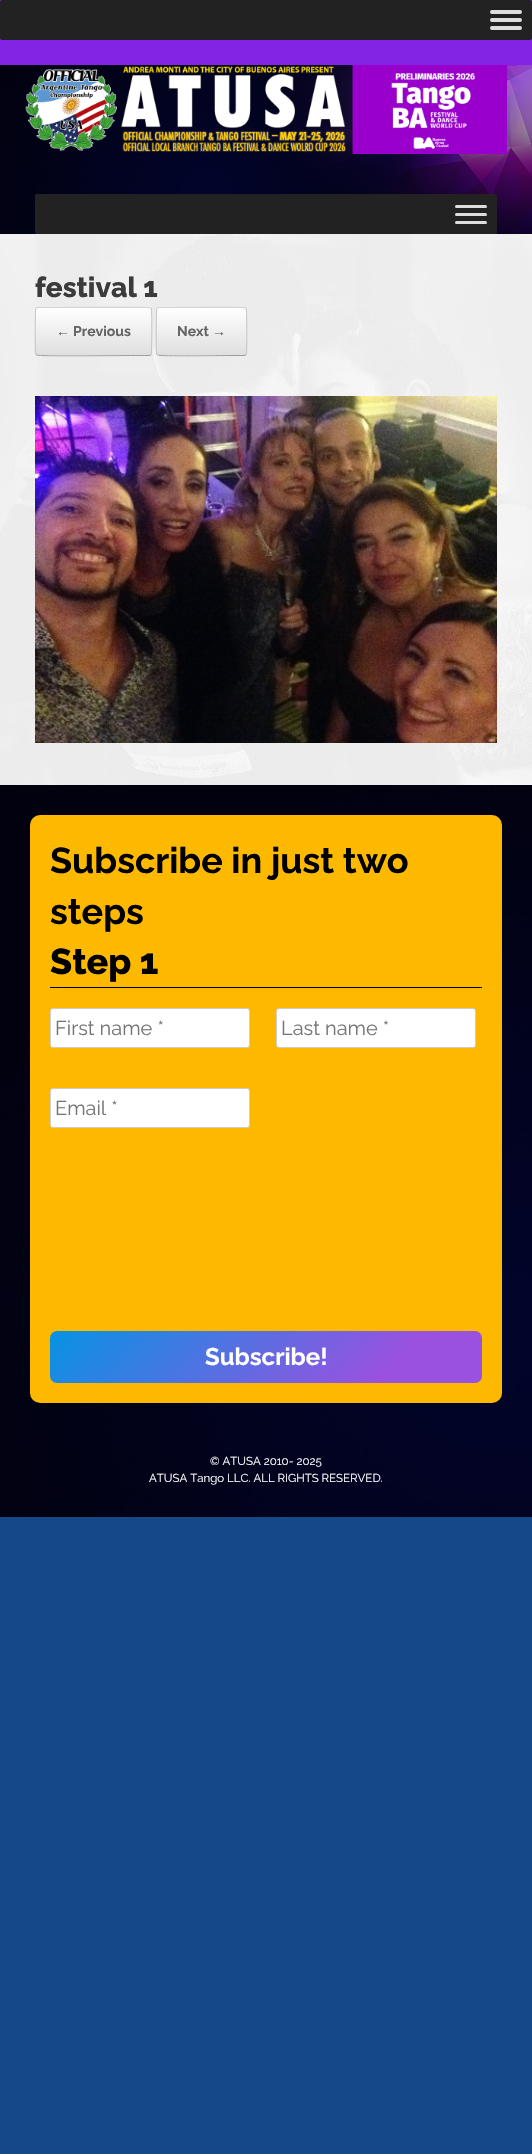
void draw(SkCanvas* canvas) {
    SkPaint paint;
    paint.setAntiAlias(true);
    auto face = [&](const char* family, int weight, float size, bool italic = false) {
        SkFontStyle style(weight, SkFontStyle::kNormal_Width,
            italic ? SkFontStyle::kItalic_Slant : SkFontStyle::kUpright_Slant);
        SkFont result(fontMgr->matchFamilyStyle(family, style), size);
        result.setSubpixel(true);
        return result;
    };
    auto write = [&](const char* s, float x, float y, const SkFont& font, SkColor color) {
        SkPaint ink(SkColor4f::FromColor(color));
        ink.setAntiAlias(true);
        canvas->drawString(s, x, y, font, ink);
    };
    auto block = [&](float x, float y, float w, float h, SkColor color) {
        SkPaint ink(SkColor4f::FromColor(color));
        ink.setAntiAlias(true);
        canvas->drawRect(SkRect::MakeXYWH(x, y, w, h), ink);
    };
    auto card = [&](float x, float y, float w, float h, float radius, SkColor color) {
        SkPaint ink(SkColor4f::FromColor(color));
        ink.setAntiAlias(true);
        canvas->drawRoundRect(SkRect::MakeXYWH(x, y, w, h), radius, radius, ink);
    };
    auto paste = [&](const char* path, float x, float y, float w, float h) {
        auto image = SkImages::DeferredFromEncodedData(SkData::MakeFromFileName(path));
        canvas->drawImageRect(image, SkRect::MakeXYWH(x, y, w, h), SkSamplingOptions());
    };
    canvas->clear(SkColorSetRGB(21, 72, 135));
    paste("pic1.png", 0, 65, 532, 169);
    block(0, 0, 532, 65, SkColorSetRGB(130, 36, 227));
    card(0, 0, 532, 40, 2, SkColorSetRGB(34, 34, 34));
    card(490, 10, 32, 4, 2, SkColorSetRGB(221, 221, 221));
    card(490, 18, 32, 4, 2, SkColorSetRGB(221, 221, 221));
    card(490, 26, 32, 4, 2, SkColorSetRGB(221, 221, 221));
    paste("pic2.png", 25, 65, 492, 89);
    card(35, 194, 462, 40, 2, SkColorSetRGB(34, 34, 34));
    card(455, 205, 32, 3, 1.5f, SkColorSetRGB(221, 221, 221));
    card(455, 213, 32, 3, 1.5f, SkColorSetRGB(221, 221, 221));
    card(455, 221, 32, 3, 1.5f, SkColorSetRGB(221, 221, 221));
    paste("pic3.png", 0, 234, 532, 551);
    auto kFont1 = face("Raleway", 800, 28);
    write("festival 1", 35, 297, kFont1, SkColorSetRGB(59, 59, 59));
    canvas->save();
    canvas->clipPath(SkPathBuilder().moveTo(38, 307).lineTo(149, 307).cubicTo(150.5f, 307, 152, 308.5f, 152, 310).lineTo(152, 353).cubicTo(152, 354.5f, 150.5f, 356, 149, 356).lineTo(38, 356).cubicTo(36.5f, 356, 35, 354.5f, 35, 353).lineTo(35, 310).cubicTo(35, 308.5f, 36.5f, 307, 38, 307).close().detach(), true);
    {
        const SkColor colors[] = {SkColorSetRGB(223, 223, 223), SK_ColorWHITE};
        const float stops[] = {0, 1};
        const SkPoint ends[] = {{36, 308}, {36, 261}};
        paint.setShader(SkGradientShader::MakeLinear(ends, colors, stops, 2, SkTileMode::kClamp));
        paint.setAlpha(255);
    }
    canvas->drawRect(SkRect::MakeXYWH(35, 307, 117, 1), paint);
    {
        const SkColor colors[] = {SkColorSetRGB(223, 223, 223), SK_ColorWHITE};
        const float stops[] = {0, 1};
        const SkPoint ends[] = {{36, 355}, {36, 308}};
        paint.setShader(SkGradientShader::MakeLinear(ends, colors, stops, 2, SkTileMode::kClamp));
        paint.setAlpha(255);
    }
    canvas->drawRect(SkRect::MakeXYWH(35, 308, 117, 47), paint);
    {
        const SkColor colors[] = {SkColorSetRGB(223, 223, 223), SK_ColorWHITE};
        const float stops[] = {0, 1};
        const SkPoint ends[] = {{36, 402}, {36, 355}};
        paint.setShader(SkGradientShader::MakeLinear(ends, colors, stops, 2, SkTileMode::kClamp));
        paint.setAlpha(255);
    }
    canvas->drawRect(SkRect::MakeXYWH(35, 355, 117, 1), paint);
    canvas->restore();
    paint.setStyle(SkPaint::kStroke_Style);
    paint.setStrokeWidth(1);
    paint.setShader(nullptr);
    paint.setColor(SkColorSetRGB(210, 210, 210));
    canvas->drawPath(SkPathBuilder().moveTo(36, 308).lineTo(38, 307.5f).lineTo(56.5f, 307.5f).cubicTo(66, 307.5f, 148.5f, 306.5f, 150.5f, 308).lineTo(151, 308).detach(), paint);
    paint.setColor(SkColorSetRGB(195, 195, 195));
    canvas->drawPath(SkPathBuilder().moveTo(151, 308).lineTo(151.5f, 310).cubicTo(152, 314, 152, 353.5f, 151, 355).detach(), paint);
    paint.setColor(SkColorSetRGB(159, 159, 159));
    canvas->drawPath(SkPathBuilder().moveTo(151, 355).lineTo(149, 355.5f).lineTo(130.5f, 355.5f).cubicTo(121, 355.5f, 38.5f, 356.5f, 36.5f, 355).lineTo(36, 355).detach(), paint);
    paint.setColor(SkColorSetRGB(195, 195, 195));
    canvas->drawPath(SkPathBuilder().moveTo(36, 355).lineTo(35.5f, 353).cubicTo(35, 349, 35, 309.5f, 36, 308).detach(), paint);
    auto kFont2 = face("Liberation Serif", 700, 14);
    write("←", 56, 336, kFont2, SkColorSetRGB(100, 100, 100));
    auto kFont3 = face("Raleway", 700, 14);
    write("Previous", 73, 336, kFont3, SkColorSetRGB(100, 100, 100));
    canvas->save();
    canvas->clipPath(SkPathBuilder().moveTo(159, 307).lineTo(244, 307).cubicTo(245.5f, 307, 247, 308.5f, 247, 310).lineTo(247, 353).cubicTo(247, 354.5f, 245.5f, 356, 244, 356).lineTo(159, 356).cubicTo(157.5f, 356, 156, 354.5f, 156, 353).lineTo(156, 310).cubicTo(156, 308.5f, 157.5f, 307, 159, 307).close().detach(), true);
    paint.setStyle(SkPaint::kFill_Style);
    {
        const SkColor colors[] = {SkColorSetRGB(223, 223, 223), SK_ColorWHITE};
        const float stops[] = {0, 1};
        const SkPoint ends[] = {{157, 308}, {157, 261}};
        paint.setShader(SkGradientShader::MakeLinear(ends, colors, stops, 2, SkTileMode::kClamp));
        paint.setAlpha(255);
    }
    canvas->drawRect(SkRect::MakeXYWH(156, 307, 91, 1), paint);
    {
        const SkColor colors[] = {SkColorSetRGB(223, 223, 223), SK_ColorWHITE};
        const float stops[] = {0, 1};
        const SkPoint ends[] = {{157, 355}, {157, 308}};
        paint.setShader(SkGradientShader::MakeLinear(ends, colors, stops, 2, SkTileMode::kClamp));
        paint.setAlpha(255);
    }
    canvas->drawRect(SkRect::MakeXYWH(156, 308, 91, 47), paint);
    {
        const SkColor colors[] = {SkColorSetRGB(223, 223, 223), SK_ColorWHITE};
        const float stops[] = {0, 1};
        const SkPoint ends[] = {{157, 402}, {157, 355}};
        paint.setShader(SkGradientShader::MakeLinear(ends, colors, stops, 2, SkTileMode::kClamp));
        paint.setAlpha(255);
    }
    canvas->drawRect(SkRect::MakeXYWH(156, 355, 91, 1), paint);
    canvas->restore();
    paint.setStyle(SkPaint::kStroke_Style);
    paint.setShader(nullptr);
    paint.setColor(SkColorSetRGB(210, 210, 210));
    canvas->drawPath(SkPathBuilder().moveTo(157, 308).lineTo(159, 307.5f).lineTo(173, 307.5f).cubicTo(180.5f, 307.5f, 243.5f, 306.5f, 245.5f, 308).lineTo(246, 308).detach(), paint);
    paint.setColor(SkColorSetRGB(195, 195, 195));
    canvas->drawPath(SkPathBuilder().moveTo(246, 308).cubicTo(247, 309.5f, 247, 349, 246.5f, 353).lineTo(246, 355).detach(), paint);
    paint.setColor(SkColorSetRGB(159, 159, 159));
    canvas->drawPath(SkPathBuilder().moveTo(246, 355).lineTo(244, 355.5f).lineTo(230, 355.5f).cubicTo(222.5f, 355.5f, 159.5f, 356.5f, 157.5f, 355).lineTo(157, 355).detach(), paint);
    paint.setColor(SkColorSetRGB(195, 195, 195));
    canvas->drawPath(SkPathBuilder().moveTo(157, 355).lineTo(156.5f, 353).cubicTo(156, 349, 156, 309.5f, 157, 308).detach(), paint);
    write("Next", 177, 336, kFont3, SkColorSetRGB(100, 100, 100));
    write("→", 212, 336, kFont2, SkColorSetRGB(100, 100, 100));
    paste("pic4.png", 35, 396, 462, 347);
    paste("pic5.png", 0, 785, 532, 732);
    card(30, 815, 472, 588, 10, SkColorSetRGB(252, 185, 0));
    auto kFont4 = face("Raleway", 700, 36);
    write("Subscribe in just two", 50, 873, kFont4, SK_ColorBLACK);
    write("steps", 50, 924, kFont4, SK_ColorBLACK);
    auto kFont5 = face("Raleway", 800, 36);
    write("Step 1", 50, 974, kFont5, SK_ColorBLACK);
    block(50, 987, 432, 1, SK_ColorBLACK);
    paint.setStyle(SkPaint::kFill_Style);
    paint.setColor(SK_ColorWHITE);
    canvas->drawRoundRect(SkRect::MakeXYWH(50.5f, 1008.5f, 199, 39), 2.5f, 2.5f, paint);
    paint.setStyle(SkPaint::kStroke_Style);
    paint.setColor(SkColorSetRGB(204, 204, 204));
    canvas->drawRoundRect(SkRect::MakeXYWH(50.5f, 1008.5f, 199, 39), 2.5f, 2.5f, paint);
    auto kFont6 = face("Raleway", 400, 20);
    write("First name *", 55, 1035, kFont6, SkColorSetRGB(117, 117, 117));
    paint.setStyle(SkPaint::kFill_Style);
    paint.setColor(SK_ColorWHITE);
    canvas->drawRoundRect(SkRect::MakeXYWH(276.5f, 1008.5f, 199, 39), 2.5f, 2.5f, paint);
    paint.setStyle(SkPaint::kStroke_Style);
    paint.setColor(SkColorSetRGB(204, 204, 204));
    canvas->drawRoundRect(SkRect::MakeXYWH(276.5f, 1008.5f, 199, 39), 2.5f, 2.5f, paint);
    write("Last name *", 281, 1035, kFont6, SkColorSetRGB(117, 117, 117));
    paint.setStyle(SkPaint::kFill_Style);
    paint.setColor(SK_ColorWHITE);
    canvas->drawRoundRect(SkRect::MakeXYWH(50.5f, 1088.5f, 199, 39), 2.5f, 2.5f, paint);
    paint.setStyle(SkPaint::kStroke_Style);
    paint.setColor(SkColorSetRGB(204, 204, 204));
    canvas->drawRoundRect(SkRect::MakeXYWH(50.5f, 1088.5f, 199, 39), 2.5f, 2.5f, paint);
    write("Email *", 55, 1115, kFont6, SkColorSetRGB(117, 117, 117));
    paint.setStyle(SkPaint::kFill_Style);
    {
        const SkColor colors[] = {SkColorSetRGB(6, 147, 227), SkColorSetRGB(155, 81, 224)};
        const float stops[] = {0, 0.78f};
        const SkPoint ends[] = {{149, 1236}, {383, 1478}};
        paint.setShader(SkGradientShader::MakeLinear(ends, colors, stops, 2, SkTileMode::kClamp));
        paint.setAlpha(255);
    }
    canvas->drawRoundRect(SkRect::MakeXYWH(50, 1331, 432, 52), 7, 7, paint);
    auto kFont7 = face("Raleway", 700, 24);
    write("Subscribe!", 205, 1365, kFont7, SK_ColorWHITE);
    auto kFont8 = face("Raleway", 400, 11.5f);
    write("© ATUSA 2010- 2025", 210, 1465, kFont8, SK_ColorWHITE);
    write("ATUSA Tango LLC. ALL RIGHTS RESERVED.", 149, 1482, kFont8, SK_ColorWHITE);
}
